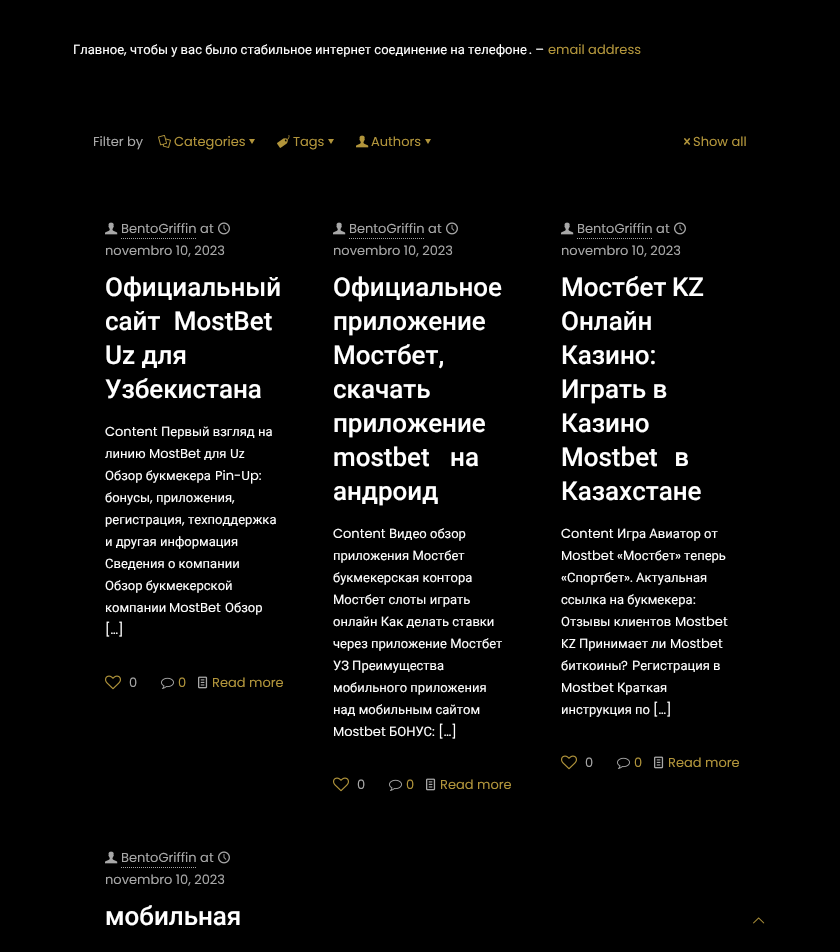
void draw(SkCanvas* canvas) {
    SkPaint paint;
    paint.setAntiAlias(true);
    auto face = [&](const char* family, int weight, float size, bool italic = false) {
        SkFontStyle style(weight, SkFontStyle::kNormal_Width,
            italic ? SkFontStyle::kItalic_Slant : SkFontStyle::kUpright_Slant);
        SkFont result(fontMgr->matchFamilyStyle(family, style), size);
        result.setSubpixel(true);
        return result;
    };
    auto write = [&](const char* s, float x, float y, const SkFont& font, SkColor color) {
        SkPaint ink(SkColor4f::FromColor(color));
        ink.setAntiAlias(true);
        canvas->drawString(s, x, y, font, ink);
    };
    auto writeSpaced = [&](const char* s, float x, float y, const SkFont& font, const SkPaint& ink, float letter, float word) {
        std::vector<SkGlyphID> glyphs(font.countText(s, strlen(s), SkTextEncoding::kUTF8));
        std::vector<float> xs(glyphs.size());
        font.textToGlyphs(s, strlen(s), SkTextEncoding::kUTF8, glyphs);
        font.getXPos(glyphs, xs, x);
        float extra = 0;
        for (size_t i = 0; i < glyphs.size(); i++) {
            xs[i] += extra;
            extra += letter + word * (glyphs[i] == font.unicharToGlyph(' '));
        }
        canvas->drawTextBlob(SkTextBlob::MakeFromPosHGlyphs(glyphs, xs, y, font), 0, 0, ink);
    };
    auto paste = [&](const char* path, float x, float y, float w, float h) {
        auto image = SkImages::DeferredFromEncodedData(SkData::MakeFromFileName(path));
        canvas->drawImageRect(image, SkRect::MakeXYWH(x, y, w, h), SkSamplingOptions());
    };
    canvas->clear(SK_ColorBLACK);
    auto kFont1 = face("Roboto", 400, 13);
    write("Главное", 73, 54, kFont1, SK_ColorWHITE);
    auto kFont2 = face("Poppins", 400, 13);
    write(",", 124, 54, kFont2, SK_ColorWHITE);
    write("чтобы у вас было стабильное интернет соединение на телефоне", 130, 54, kFont1, SK_ColorWHITE);
    write(". –", 529, 54, kFont2, SK_ColorWHITE);
    write("email address", 548, 54, kFont2, SkColorSetRGB(178, 149, 59));
    write("Filter by", 93, 146, kFont2, SkColorSetRGB(168, 168, 168));
    paste("pic1.png", 158, 135, 13, 13);
    write("Categories", 174, 146, kFont2, SkColorSetRGB(178, 149, 59));
    paint.setColor(SkColorSetRGB(178, 149, 59));
    canvas->drawPath(SkPathBuilder().moveTo(255, 139).lineTo(252, 144).lineTo(249, 139).close().detach(), paint);
    paste("pic2.png", 277, 135, 13, 13);
    write("Tags", 293, 146, kFont2, SkColorSetRGB(178, 149, 59));
    canvas->drawPath(SkPathBuilder().moveTo(334, 139).lineTo(331, 144).lineTo(328, 139).close().detach(), paint);
    paste("pic3.png", 356, 135, 13, 13);
    write("Authors", 371, 146, kFont2, SkColorSetRGB(178, 149, 59));
    canvas->drawPath(SkPathBuilder().moveTo(431, 139).lineTo(428, 144).lineTo(425, 139).close().detach(), paint);
    paste("pic4.png", 684, 138, 7, 7);
    write("Show all", 693, 146, kFont2, SkColorSetRGB(178, 149, 59));
    paste("pic5.png", 105, 222, 13, 13);
    write("BentoGriffin at", 121, 233, kFont2, SkColorSetRGB(168, 168, 168));
    paint.setStyle(SkPaint::kStroke_Style);
    paint.setStrokeWidth(1);
    paint.setColor(SkColorSetRGB(168, 168, 168));
    paint.setPathEffect(SkDashPathEffect::Make({{1, 1}}, 0));
    canvas->drawPath(SkPathBuilder().moveTo(121, 238.5f).lineTo(197, 238.5f).detach(), paint);
    paint.setPathEffect(nullptr);
    paste("pic6.png", 218, 222, 12, 13);
    write("novembro 10, 2023", 105, 255, kFont2, SkColorSetRGB(168, 168, 168));
    auto kFont3 = face("Roboto", 500, 26);
    write("Официальный", 105, 296, kFont3, SK_ColorWHITE);
    paint.setStyle(SkPaint::kFill_Style);
    paint.setColor(SK_ColorWHITE);
    writeSpaced("сайт MostBet", 105, 330, kFont3, paint, 0, 7);
    write("Uz для", 105, 364, kFont3, SK_ColorWHITE);
    write("Узбекистана", 105, 398, kFont3, SK_ColorWHITE);
    write("Content", 105, 436, kFont2, SK_ColorWHITE);
    write("Первый взгляд на", 161, 436, kFont1, SK_ColorWHITE);
    write("линию", 105, 458, kFont1, SK_ColorWHITE);
    write("MostBet", 149, 458, kFont2, SK_ColorWHITE);
    write("для", 204, 458, kFont1, SK_ColorWHITE);
    write("Uz", 230, 458, kFont2, SK_ColorWHITE);
    write("Обзор букмекера", 105, 480, kFont1, SK_ColorWHITE);
    write("Pin-Up:", 215, 480, kFont2, SK_ColorWHITE);
    write("бонусы", 105, 502, kFont1, SK_ColorWHITE);
    write(",", 150, 502, kFont2, SK_ColorWHITE);
    write("приложения", 156, 502, kFont1, SK_ColorWHITE);
    write(",", 232, 502, kFont2, SK_ColorWHITE);
    write("регистрация", 105, 524, kFont1, SK_ColorWHITE);
    write(",", 182, 524, kFont2, SK_ColorWHITE);
    write("техподдержка", 188, 524, kFont1, SK_ColorWHITE);
    write("и другая информация", 105, 546, kFont1, SK_ColorWHITE);
    write("Сведения о компании", 105, 568, kFont1, SK_ColorWHITE);
    write("Обзор букмекерской", 105, 590, kFont1, SK_ColorWHITE);
    write("компании", 105, 612, kFont1, SK_ColorWHITE);
    write("MostBet", 169, 612, kFont2, SK_ColorWHITE);
    write("Обзор", 225, 612, kFont1, SK_ColorWHITE);
    write("[…]", 105, 634, kFont2, SK_ColorWHITE);
    paste("pic7.png", 105, 675, 16, 15);
    write("0", 129, 687, kFont2, SkColorSetRGB(168, 168, 168));
    paste("pic8.png", 161, 677, 13, 12);
    write("0", 178, 687, kFont2, SkColorSetRGB(178, 149, 59));
    paste("pic9.png", 198, 676, 10, 13);
    write("Read more", 212, 687, kFont2, SkColorSetRGB(178, 149, 59));
    paste("pic5.png", 333, 222, 13, 13);
    write("BentoGriffin at", 349, 233, kFont2, SkColorSetRGB(168, 168, 168));
    paint.setStyle(SkPaint::kStroke_Style);
    paint.setColor(SkColorSetRGB(168, 168, 168));
    paint.setPathEffect(SkDashPathEffect::Make({{1, 1}}, 0));
    canvas->drawPath(SkPathBuilder().moveTo(349, 238.5f).lineTo(425, 238.5f).detach(), paint);
    paint.setPathEffect(nullptr);
    paste("pic6.png", 446, 222, 12, 13);
    write("novembro 10, 2023", 333, 255, kFont2, SkColorSetRGB(168, 168, 168));
    write("Официальное", 333, 296, kFont3, SK_ColorWHITE);
    write("приложение", 333, 330, kFont3, SK_ColorWHITE);
    write("Мостбет,", 333, 364, kFont3, SK_ColorWHITE);
    write("скачать", 333, 398, kFont3, SK_ColorWHITE);
    write("приложение", 333, 432, kFont3, SK_ColorWHITE);
    paint.setStyle(SkPaint::kFill_Style);
    paint.setColor(SK_ColorWHITE);
    writeSpaced("mostbet на", 333, 466, kFont3, paint, 0, 14);
    write("андроид", 333, 500, kFont3, SK_ColorWHITE);
    write("Content", 333, 538, kFont2, SK_ColorWHITE);
    write("Видео обзор", 389, 538, kFont1, SK_ColorWHITE);
    write("приложения Мостбет", 333, 560, kFont1, SK_ColorWHITE);
    write("букмекерская контора", 333, 582, kFont1, SK_ColorWHITE);
    write("Мостбет слоты играть", 333, 604, kFont1, SK_ColorWHITE);
    write("онлайн Как делать ставки", 333, 626, kFont1, SK_ColorWHITE);
    write("через приложение Мостбет", 333, 648, kFont1, SK_ColorWHITE);
    write("УЗ Преимущества", 333, 670, kFont1, SK_ColorWHITE);
    write("мобильного приложения", 333, 692, kFont1, SK_ColorWHITE);
    write("над мобильным сайтом", 333, 714, kFont1, SK_ColorWHITE);
    write("Mostbet", 333, 736, kFont2, SK_ColorWHITE);
    write("БОНУС", 389, 736, kFont1, SK_ColorWHITE);
    write(": […]", 432, 736, kFont2, SK_ColorWHITE);
    paste("pic7.png", 333, 777, 16, 15);
    write("0", 357, 789, kFont2, SkColorSetRGB(168, 168, 168));
    paste("pic8.png", 389, 779, 13, 12);
    write("0", 406, 789, kFont2, SkColorSetRGB(178, 149, 59));
    paste("pic9.png", 426, 778, 10, 13);
    write("Read more", 440, 789, kFont2, SkColorSetRGB(178, 149, 59));
    paste("pic5.png", 561, 222, 13, 13);
    write("BentoGriffin at", 577, 233, kFont2, SkColorSetRGB(168, 168, 168));
    paint.setStyle(SkPaint::kStroke_Style);
    paint.setColor(SkColorSetRGB(168, 168, 168));
    paint.setPathEffect(SkDashPathEffect::Make({{1, 1}}, 0));
    canvas->drawPath(SkPathBuilder().moveTo(577, 238.5f).lineTo(653, 238.5f).detach(), paint);
    paint.setPathEffect(nullptr);
    paste("pic6.png", 674, 222, 12, 13);
    write("novembro 10, 2023", 561, 255, kFont2, SkColorSetRGB(168, 168, 168));
    paint.setStyle(SkPaint::kFill_Style);
    paint.setColor(SK_ColorWHITE);
    writeSpaced("Мостбет KZ", 561, 296, kFont3, paint, 0, -1);
    write("Онлайн", 561, 330, kFont3, SK_ColorWHITE);
    write("Казино:", 561, 364, kFont3, SK_ColorWHITE);
    write("Играть в", 561, 398, kFont3, SK_ColorWHITE);
    write("Казино", 561, 432, kFont3, SK_ColorWHITE);
    writeSpaced("Mostbet в", 561, 466, kFont3, paint, 0, 10);
    write("Казахстане", 561, 500, kFont3, SK_ColorWHITE);
    write("Content", 561, 538, kFont2, SK_ColorWHITE);
    write("Игра Авиатор от", 617, 538, kFont1, SK_ColorWHITE);
    write("Mostbet «", 561, 560, kFont2, SK_ColorWHITE);
    write("Мостбет", 623, 560, kFont1, SK_ColorWHITE);
    write("»", 675, 560, kFont2, SK_ColorWHITE);
    write("теперь", 684, 560, kFont1, SK_ColorWHITE);
    write("«", 561, 582, kFont2, SK_ColorWHITE);
    write("Спортбет", 567, 582, kFont1, SK_ColorWHITE);
    write("».", 624, 582, kFont2, SK_ColorWHITE);
    write("Актуальная", 636, 582, kFont1, SK_ColorWHITE);
    write("ссылка на букмекера", 561, 604, kFont1, SK_ColorWHITE);
    write(":", 693, 604, kFont2, SK_ColorWHITE);
    write("Отзывы клиентов", 561, 626, kFont1, SK_ColorWHITE);
    write("Mostbet", 675, 626, kFont2, SK_ColorWHITE);
    write("KZ", 561, 648, kFont2, SK_ColorWHITE);
    write("Принимает ли", 579, 648, kFont1, SK_ColorWHITE);
    write("Mostbet", 670, 648, kFont2, SK_ColorWHITE);
    write("биткоины", 561, 670, kFont1, SK_ColorWHITE);
    write("?", 621, 670, kFont2, SK_ColorWHITE);
    write("Регистрация в", 632, 670, kFont1, SK_ColorWHITE);
    write("Mostbet", 561, 692, kFont2, SK_ColorWHITE);
    write("Краткая", 617, 692, kFont1, SK_ColorWHITE);
    write("инструкция по", 561, 714, kFont1, SK_ColorWHITE);
    write("[…]", 653, 714, kFont2, SK_ColorWHITE);
    paste("pic7.png", 561, 755, 16, 15);
    write("0", 585, 767, kFont2, SkColorSetRGB(168, 168, 168));
    paste("pic8.png", 617, 757, 13, 12);
    write("0", 634, 767, kFont2, SkColorSetRGB(178, 149, 59));
    paste("pic9.png", 654, 756, 10, 13);
    write("Read more", 668, 767, kFont2, SkColorSetRGB(178, 149, 59));
    paste("pic5.png", 105, 851, 13, 13);
    write("BentoGriffin at", 121, 862, kFont2, SkColorSetRGB(168, 168, 168));
    paint.setStyle(SkPaint::kStroke_Style);
    paint.setColor(SkColorSetRGB(168, 168, 168));
    paint.setPathEffect(SkDashPathEffect::Make({{1, 1}}, 0));
    canvas->drawPath(SkPathBuilder().moveTo(121, 867.5f).lineTo(197, 867.5f).detach(), paint);
    paint.setPathEffect(nullptr);
    paste("pic6.png", 218, 851, 12, 13);
    write("novembro 10, 2023", 105, 884, kFont2, SkColorSetRGB(168, 168, 168));
    write("мобильная", 105, 925, kFont3, SK_ColorWHITE);
    paste("pic10.png", 753, 917, 12, 7);
}
